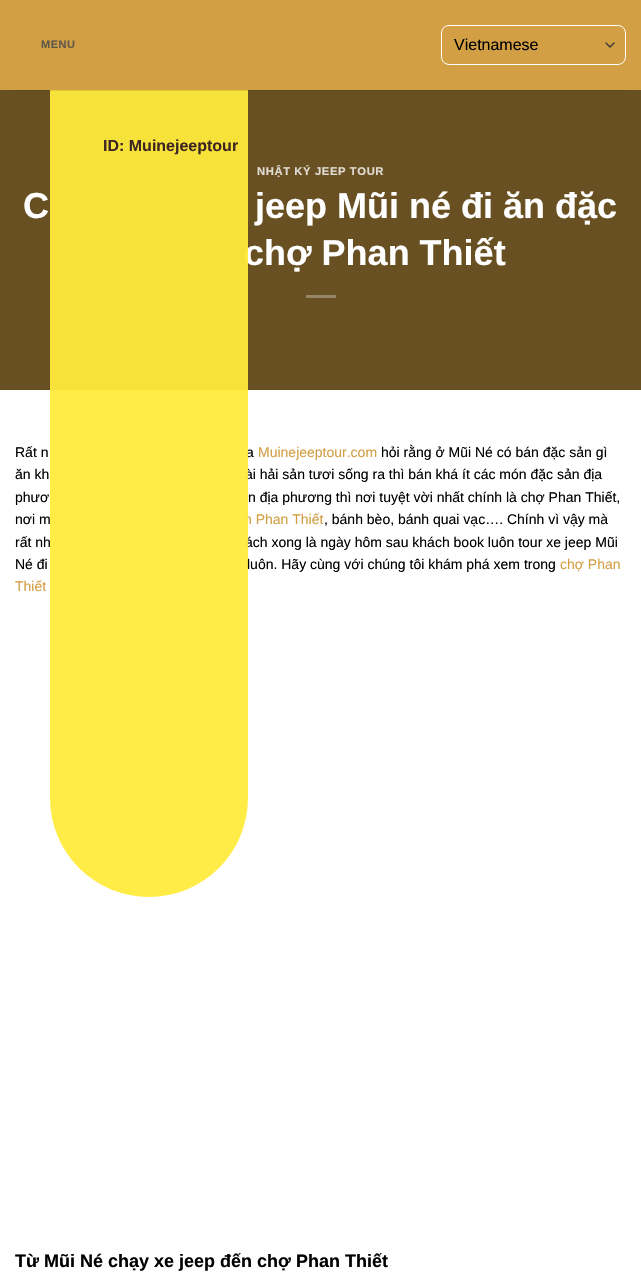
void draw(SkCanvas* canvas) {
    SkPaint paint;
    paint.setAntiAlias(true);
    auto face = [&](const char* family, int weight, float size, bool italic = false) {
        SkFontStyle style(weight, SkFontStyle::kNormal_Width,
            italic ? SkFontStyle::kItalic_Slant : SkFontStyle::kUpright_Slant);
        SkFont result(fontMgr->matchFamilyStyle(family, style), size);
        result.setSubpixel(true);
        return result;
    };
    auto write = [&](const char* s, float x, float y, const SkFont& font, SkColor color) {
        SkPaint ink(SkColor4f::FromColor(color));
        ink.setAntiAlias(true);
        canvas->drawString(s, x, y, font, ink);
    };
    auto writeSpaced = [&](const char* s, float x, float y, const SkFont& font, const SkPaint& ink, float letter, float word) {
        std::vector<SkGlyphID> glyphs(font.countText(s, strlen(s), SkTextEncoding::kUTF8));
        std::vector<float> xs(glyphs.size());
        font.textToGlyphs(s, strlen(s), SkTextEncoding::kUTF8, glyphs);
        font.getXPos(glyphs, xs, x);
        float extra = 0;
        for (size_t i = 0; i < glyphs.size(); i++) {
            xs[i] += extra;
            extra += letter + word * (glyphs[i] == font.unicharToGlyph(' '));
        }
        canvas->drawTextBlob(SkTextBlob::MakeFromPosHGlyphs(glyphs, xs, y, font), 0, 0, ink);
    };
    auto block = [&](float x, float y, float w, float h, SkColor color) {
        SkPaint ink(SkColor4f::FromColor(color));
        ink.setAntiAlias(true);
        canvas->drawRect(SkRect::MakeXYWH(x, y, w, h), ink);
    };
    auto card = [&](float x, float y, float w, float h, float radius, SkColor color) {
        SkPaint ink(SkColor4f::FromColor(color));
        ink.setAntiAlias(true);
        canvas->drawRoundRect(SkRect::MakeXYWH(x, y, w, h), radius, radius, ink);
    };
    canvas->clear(SK_ColorWHITE);
    block(0, 90, 641, 300, SkColorSetRGB(105, 80, 34));
    auto kFont1 = face("Liberation Sans", 700, 36);
    write("chợ Phan Thiết", 244, 265, kFont1, SK_ColorWHITE);
    auto kFont2 = face("Liberation Sans", 400, 14);
    write("a", 246, 457, kFont2, SK_ColorBLACK);
    write("ài hải sản tươi sống ra thì bán khá ít các món đặc sản địa", 245, 479, kFont2, SK_ColorBLACK);
    write("n Phan Thiết", 244, 524, kFont2, SkColorSetRGB(210, 159, 68));
    write("ách xong là ngày hôm sau khách book luôn tour xe jeep Mũi", 245, 547, kFont2, SK_ColorBLACK);
    card(50, -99, 198, 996, 99, SkColorSetARGB(240, 255, 235, 58));
    block(0, 0, 641, 90, SkColorSetRGB(210, 159, 68));
    auto kFont3 = face("Liberation Sans", 700, 11);
    paint.setColor(SkColorSetRGB(94, 87, 73));
    writeSpaced("MENU", 41, 48, kFont3, paint, 0.5f, 0);
    paint.setStyle(SkPaint::kStroke_Style);
    paint.setStrokeWidth(1.3f);
    paint.setStrokeCap(SkPaint::kRound_Cap);
    paint.setStrokeJoin(SkPaint::kRound_Join);
    paint.setColor(SkColorSetRGB(51, 51, 51));
    canvas->drawPath(SkPathBuilder().moveTo(606, 43).lineTo(610, 47).lineTo(614, 43).detach(), paint);
    paint.setStrokeWidth(1);
    paint.setStrokeCap(SkPaint::kButt_Cap);
    paint.setStrokeJoin(SkPaint::kMiter_Join);
    paint.setColor(SK_ColorWHITE);
    canvas->drawRoundRect(SkRect::MakeXYWH(441.5f, 25.5f, 184, 39), 7.5f, 7.5f, paint);
    auto kFont4 = face("Liberation Sans", 400, 16);
    write("Vietnamese", 454, 50, kFont4, SK_ColorBLACK);
    block(15, 90, 611, 1, SkColorSetARGB(26, 0, 0, 0));
    auto kFont5 = face("Liberation Sans", 700, 16);
    write("ID: Muinejeeptour", 103, 151, kFont5, SkColorSetRGB(62, 38, 35));
    auto kFont6 = face("Liberation Sans", 700, 11.25f);
    paint.setStyle(SkPaint::kFill_Style);
    paint.setColor(SkColorSetRGB(225, 220, 211));
    writeSpaced("NHẬT KÝ JEEP TOUR", 257, 175, kFont6, paint, 0.6f, 0);
    write("C", 23, 218, kFont1, SK_ColorWHITE);
    write("jeep Mũi né đi ăn đặc", 255, 218, kFont1, SK_ColorWHITE);
    block(306, 295, 30, 3, SkColorSetRGB(150, 133, 100));
    write("Rất n", 15, 457, kFont2, SK_ColorBLACK);
    write("Muinejeeptour.com", 258, 457, kFont2, SkColorSetRGB(210, 159, 68));
    write("hỏi rằng ở Mũi Né có bán đặc sản gì", 381, 457, kFont2, SK_ColorBLACK);
    write("ăn kh", 15, 479, kFont2, SK_ColorBLACK);
    write("phươ", 15, 502, kFont2, SK_ColorBLACK);
    write("n địa phương thì nơi tuyệt vời nhất chính là chợ Phan Thiết,", 248, 502, kFont2, SK_ColorBLACK);
    write("nơi m", 15, 524, kFont2, SK_ColorBLACK);
    write(", bánh bèo, bánh quai vạc…. Chính vì vậy mà", 324, 524, kFont2, SK_ColorBLACK);
    write("rất nh", 15, 547, kFont2, SK_ColorBLACK);
    write("Né đi", 15, 569, kFont2, SK_ColorBLACK);
    write("luôn. Hãy cùng với chúng tôi khám phá xem trong", 247, 569, kFont2, SK_ColorBLACK);
    write("chợ Phan", 560, 569, kFont2, SkColorSetRGB(210, 159, 68));
    write("Thiết", 15, 591, kFont2, SkColorSetRGB(210, 159, 68));
    auto kFont7 = face("Liberation Sans", 700, 18);
    write("Từ Mũi Né chạy xe jeep đến chợ Phan Thiết", 15, 1267, kFont7, SK_ColorBLACK);
}
